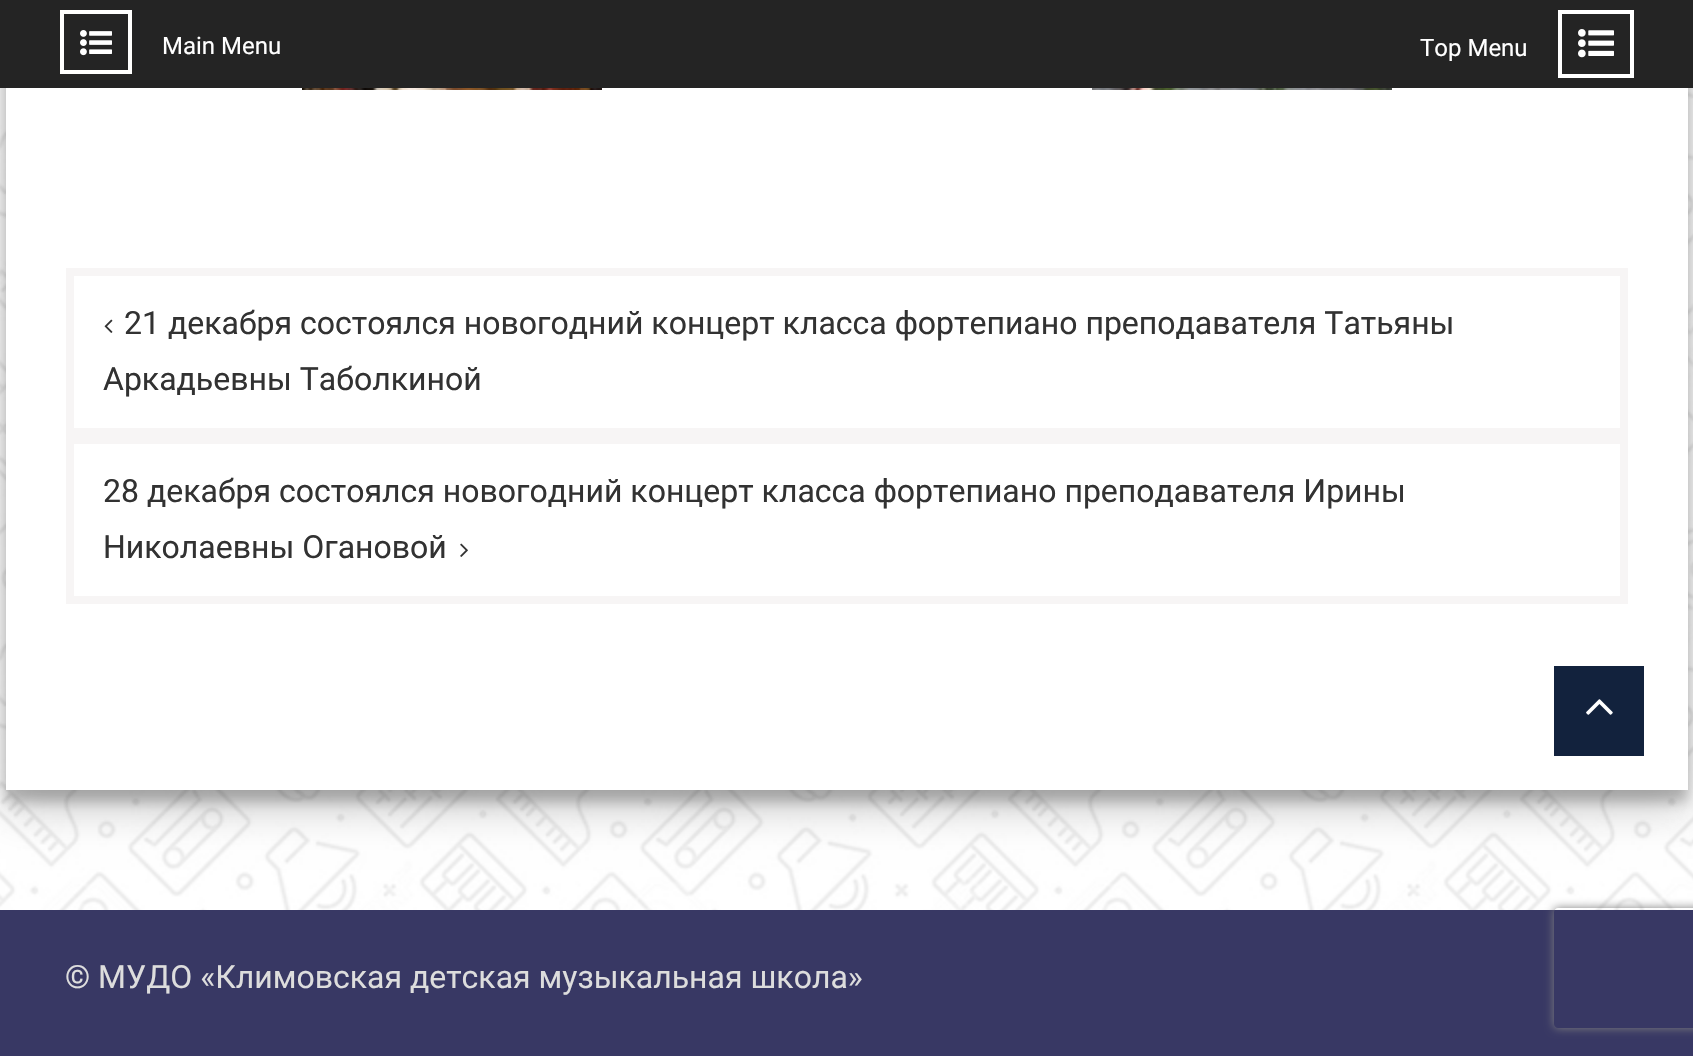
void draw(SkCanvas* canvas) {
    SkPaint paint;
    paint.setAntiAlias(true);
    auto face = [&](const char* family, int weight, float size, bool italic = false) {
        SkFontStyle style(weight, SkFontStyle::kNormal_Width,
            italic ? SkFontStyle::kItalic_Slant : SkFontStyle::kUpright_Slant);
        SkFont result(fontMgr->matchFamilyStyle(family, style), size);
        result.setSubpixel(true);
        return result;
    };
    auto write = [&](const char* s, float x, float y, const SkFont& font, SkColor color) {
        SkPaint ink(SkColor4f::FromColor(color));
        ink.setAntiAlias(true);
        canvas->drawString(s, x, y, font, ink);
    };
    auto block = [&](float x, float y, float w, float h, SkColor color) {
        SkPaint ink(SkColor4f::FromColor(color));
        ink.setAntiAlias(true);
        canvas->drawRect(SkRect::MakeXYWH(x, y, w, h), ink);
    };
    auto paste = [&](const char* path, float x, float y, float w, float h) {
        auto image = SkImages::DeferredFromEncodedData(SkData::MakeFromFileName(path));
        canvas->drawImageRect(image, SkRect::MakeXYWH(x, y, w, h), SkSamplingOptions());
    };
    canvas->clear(SK_ColorWHITE);
    paste("pic1.png", 0, 88, 1693, 822);
    paint.setColor(SkColorSetARGB(59, 0, 0, 0));
    paint.setMaskFilter(SkMaskFilter::MakeBlur(kNormal_SkBlurStyle, 6));
    canvas->drawRect(SkRect::MakeXYWH(6, -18, 1682, 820), paint);
    paint.setMaskFilter(nullptr);
    paint.setColor(SkColorSetARGB(48, 0, 0, 0));
    paint.setMaskFilter(SkMaskFilter::MakeBlur(kNormal_SkBlurStyle, 20));
    canvas->drawRect(SkRect::MakeXYWH(6, -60, 1682, 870), paint);
    paint.setMaskFilter(nullptr);
    block(0, 0, 1693, 88, SkColorSetRGB(36, 36, 36));
    paint.setStyle(SkPaint::kStroke_Style);
    paint.setStrokeWidth(4);
    paint.setColor(SkColorSetRGB(255, 255, 254));
    canvas->drawRect(SkRect::MakeXYWH(62, 12, 68, 60), paint);
    paste("pic2.png", 80, 30, 32, 26);
    auto kFont1 = face("Roboto", 400, 24);
    write("Main Menu", 162, 54, kFont1, SK_ColorWHITE);
    write("Top Menu", 1420, 56, kFont1, SK_ColorWHITE);
    paint.setColor(SK_ColorWHITE);
    canvas->drawRect(SkRect::MakeXYWH(1560, 12, 72, 64), paint);
    paste("pic3.png", 1578, 29, 36, 29);
    block(6, 88, 1682, 702, SK_ColorWHITE);
    paste("pic4.png", 302, 88, 300, 2);
    paste("pic5.png", 1092, 88, 300, 2);
    paint.setStrokeWidth(8);
    paint.setColor(SkColorSetRGB(247, 245, 245));
    canvas->drawRect(SkRect::MakeXYWH(70, 272, 1554, 160), paint);
    paste("pic6.png", 104, 319, 9, 14);
    auto kFont2 = face("Roboto", 400, 32);
    write("21 декабря состоялся новогодний концерт класса фортепиано преподавателя Татьяны", 124, 334, kFont2, SkColorSetRGB(50, 50, 50));
    write("Аркадьевны Таболкиной", 103, 390, kFont2, SkColorSetRGB(50, 50, 50));
    canvas->drawRect(SkRect::MakeXYWH(70, 440, 1554, 160), paint);
    write("28 декабря состоялся новогодний концерт класса фортепиано преподавателя Ирины", 103, 502, kFont2, SkColorSetRGB(50, 50, 50));
    write("Николаевны Огановой", 103, 558, kFont2, SkColorSetRGB(50, 50, 50));
    paste("pic7.png", 460, 543, 8, 14);
    block(0, 910, 1693, 146, SkColorSetRGB(56, 56, 100));
    write("© МУДО «Климовская детская музыкальная школа»", 65, 988, kFont2, SkColorSetRGB(221, 221, 221));
    block(1554, 666, 90, 90, SkColorSetRGB(18, 34, 61));
    paste("pic8.png", 1586, 699, 27, 16);
    canvas->save();
    canvas->clipPath(SkPathBuilder(SkPathFillType::kEvenOdd).moveTo(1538, 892).lineTo(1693, 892).lineTo(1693, 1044).lineTo(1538, 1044).close().moveTo(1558, 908).lineTo(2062, 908).cubicTo(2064, 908, 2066, 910, 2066, 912).lineTo(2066, 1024).cubicTo(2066, 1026, 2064, 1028, 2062, 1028).lineTo(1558, 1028).cubicTo(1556, 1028, 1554, 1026, 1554, 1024).lineTo(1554, 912).cubicTo(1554, 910, 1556, 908, 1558, 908).close().detach(), true);
    paint.setStyle(SkPaint::kFill_Style);
    paint.setColor(SkColorSetRGB(128, 128, 128));
    paint.setMaskFilter(SkMaskFilter::MakeBlur(kNormal_SkBlurStyle, 5));
    canvas->drawRoundRect(SkRect::MakeXYWH(1554, 908, 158, 120), 4, 4, paint);
    paint.setMaskFilter(nullptr);
    canvas->restore();
}
